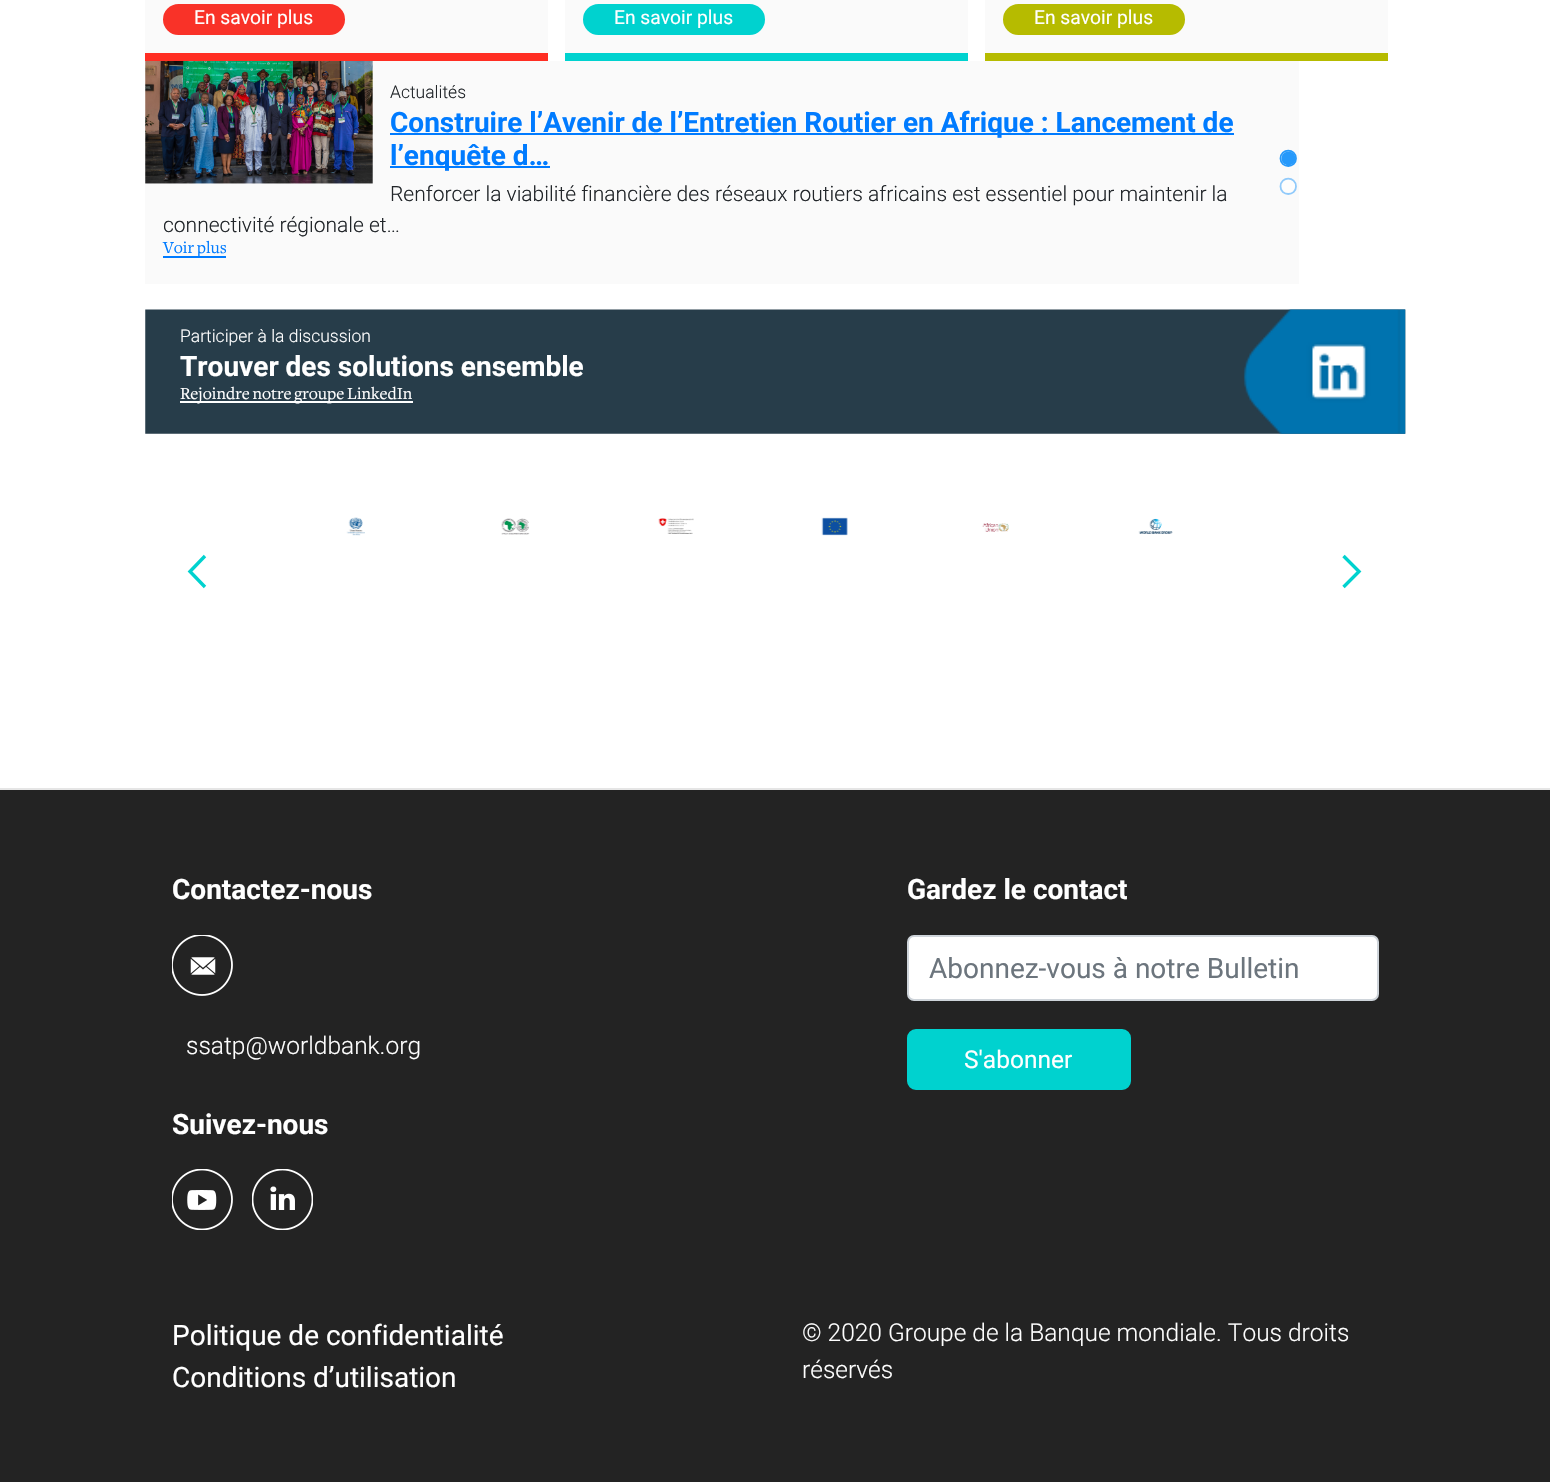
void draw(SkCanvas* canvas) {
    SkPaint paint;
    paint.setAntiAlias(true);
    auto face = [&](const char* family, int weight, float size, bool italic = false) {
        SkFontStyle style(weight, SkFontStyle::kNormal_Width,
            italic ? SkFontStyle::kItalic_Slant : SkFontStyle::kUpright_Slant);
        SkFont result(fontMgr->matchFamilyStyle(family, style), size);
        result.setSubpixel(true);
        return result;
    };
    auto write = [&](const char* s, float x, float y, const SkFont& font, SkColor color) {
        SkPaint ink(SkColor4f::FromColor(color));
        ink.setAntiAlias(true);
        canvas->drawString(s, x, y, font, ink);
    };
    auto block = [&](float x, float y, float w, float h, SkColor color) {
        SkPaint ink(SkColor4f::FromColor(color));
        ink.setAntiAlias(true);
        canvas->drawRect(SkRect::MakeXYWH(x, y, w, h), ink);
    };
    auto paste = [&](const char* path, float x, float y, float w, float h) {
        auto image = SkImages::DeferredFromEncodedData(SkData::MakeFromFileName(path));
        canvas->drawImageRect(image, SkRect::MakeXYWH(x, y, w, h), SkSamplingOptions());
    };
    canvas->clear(SK_ColorWHITE);
    block(145, 0, 403, 53, SkColorSetRGB(250, 250, 250));
    block(145, 53, 403, 8, SkColorSetRGB(255, 46, 35));
    paint.setColor(SkColorSetRGB(249, 50, 40));
    canvas->drawRoundRect(SkRect::MakeXYWH(164, 5, 180, 29), 14.5f, 14.5f, paint);
    paint.setStyle(SkPaint::kStroke_Style);
    paint.setStrokeWidth(2);
    canvas->drawRoundRect(SkRect::MakeXYWH(164, 5, 180, 29), 14.5f, 14.5f, paint);
    auto kFont1 = face("Roboto", 400, 19.25f);
    write("En savoir plus", 194, 24, kFont1, SK_ColorWHITE);
    block(565, 0, 403, 53, SkColorSetRGB(250, 250, 250));
    block(565, 53, 403, 8, SkColorSetRGB(0, 210, 207));
    paint.setStyle(SkPaint::kFill_Style);
    paint.setColor(SkColorSetRGB(0, 210, 207));
    canvas->drawRoundRect(SkRect::MakeXYWH(584, 5, 180, 29), 14.5f, 14.5f, paint);
    paint.setStyle(SkPaint::kStroke_Style);
    canvas->drawRoundRect(SkRect::MakeXYWH(584, 5, 180, 29), 14.5f, 14.5f, paint);
    write("En savoir plus", 614, 24, kFont1, SK_ColorWHITE);
    block(985, 0, 403, 53, SkColorSetRGB(250, 250, 250));
    block(985, 53, 403, 8, SkColorSetRGB(182, 187, 0));
    paint.setStyle(SkPaint::kFill_Style);
    paint.setColor(SkColorSetRGB(182, 187, 0));
    canvas->drawRoundRect(SkRect::MakeXYWH(1004, 5, 180, 29), 14.5f, 14.5f, paint);
    paint.setStyle(SkPaint::kStroke_Style);
    canvas->drawRoundRect(SkRect::MakeXYWH(1004, 5, 180, 29), 14.5f, 14.5f, paint);
    write("En savoir plus", 1034, 24, kFont1, SK_ColorWHITE);
    block(145, 61, 1154, 223, SkColorSetRGB(250, 250, 250));
    paste("pic1.png", 145, 61, 228, 123);
    auto kFont2 = face("Roboto", 300, 17.5f);
    write("Actualités", 390, 98, kFont2, SkColorSetRGB(33, 37, 41));
    block(390, 133, 844, 2, SkColorSetRGB(0, 123, 255));
    auto kFont3 = face("Roboto", 700, 28);
    write("Construire l’Avenir de l’Entretien Routier en Afrique : Lancement de", 390, 132, kFont3, SkColorSetRGB(0, 123, 255));
    block(390, 166, 160, 2, SkColorSetRGB(0, 123, 255));
    write("l’enquête d…", 390, 165, kFont3, SkColorSetRGB(0, 123, 255));
    auto kFont4 = face("Roboto", 300, 21);
    write("Renforcer la viabilité financière des réseaux routiers africains est essentiel pour maintenir la", 390, 201, kFont4, SkColorSetRGB(33, 37, 41));
    write("connectivité régionale et…", 163, 232, kFont4, SkColorSetRGB(33, 37, 41));
    block(163, 256, 63, 2, SkColorSetRGB(0, 123, 255));
    auto kFont5 = face("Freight", 400, 17.5f);
    write("Voir plus", 163, 253, kFont5, SkColorSetRGB(0, 123, 255));
    paint.setStyle(SkPaint::kFill_Style);
    paint.setColor(SkColorSetRGB(38, 153, 251));
    canvas->drawPath(SkPathBuilder().moveTo(1295.5f, 158.5f).cubicTo(1295.5f, 167.5f, 1281.5f, 167.5f, 1281.5f, 158.5f).cubicTo(1281.5f, 149, 1295.5f, 149, 1295.5f, 158.5f).close().detach(), paint);
    paint.setStyle(SkPaint::kStroke_Style);
    paint.setStrokeWidth(1.8f);
    canvas->drawPath(SkPathBuilder().moveTo(1296, 158.5f).cubicTo(1296, 168.5f, 1280.5f, 168.5f, 1280.5f, 158.5f).cubicTo(1280.5f, 148, 1296, 148, 1296, 158.5f).close().detach(), paint);
    paint.setStyle(SkPaint::kFill_Style);
    paint.setColor(SkColorSetRGB(253, 253, 253));
    canvas->drawPath(SkPathBuilder().moveTo(1295.5f, 186.5f).cubicTo(1295.5f, 195.5f, 1281.5f, 195.5f, 1281.5f, 186.5f).cubicTo(1281.5f, 177, 1295.5f, 177, 1295.5f, 186.5f).close().detach(), paint);
    paint.setStyle(SkPaint::kStroke_Style);
    paint.setColor(SkColorSetRGB(144, 202, 251));
    canvas->drawPath(SkPathBuilder().moveTo(1296, 186.5f).cubicTo(1296, 196.5f, 1280.5f, 196.5f, 1280.5f, 186.5f).cubicTo(1280.5f, 176, 1296, 176, 1296, 186.5f).close().detach(), paint);
    paste("pic2.png", 145, 309, 1261, 125);
    write("Participer à la discussion", 180, 342, kFont2, SK_ColorWHITE);
    write("Trouver des solutions ensemble", 180, 376, kFont3, SK_ColorWHITE);
    block(180, 401, 233, 2, SK_ColorWHITE);
    write("Rejoindre notre groupe LinkedIn", 180, 399, kFont5, SK_ColorWHITE);
    paste("pic3.png", 346, 517, 19, 19);
    paste("pic4.png", 501, 518, 29, 17);
    paste("pic5.png", 658, 518, 36, 16);
    paste("pic6.png", 821, 517, 27, 19);
    paste("pic7.png", 982, 523, 27, 9);
    paste("pic8.png", 1138, 518, 35, 16);
    paint.setStrokeWidth(3.4f);
    paint.setColor(SkColorSetRGB(0, 210, 207));
    canvas->drawPath(SkPathBuilder().moveTo(205, 556).lineTo(190, 571.5f).lineTo(205, 587).detach(), paint);
    canvas->drawPath(SkPathBuilder().moveTo(1343.5f, 587).lineTo(1359, 571.5f).lineTo(1343.5f, 556).detach(), paint);
    block(0, 790, 1550, 692, SkColorSetRGB(35, 35, 35));
    block(0, 788, 1550, 2, SkColorSetRGB(229, 229, 229));
    write("Contactez-nous", 172, 899, kFont3, SK_ColorWHITE);
    paste("pic9.png", 172, 935, 61, 61);
    auto kFont6 = face("Roboto", 300, 24.5f);
    write("ssatp@worldbank.org", 186, 1054, kFont6, SK_ColorWHITE);
    write("Suivez-nous", 172, 1134, kFont3, SK_ColorWHITE);
    paste("pic10.png", 172, 1169, 61, 61);
    paste("pic11.png", 252, 1169, 61, 61);
    write("Gardez le contact", 907, 899, kFont3, SK_ColorWHITE);
    paint.setStyle(SkPaint::kFill_Style);
    paint.setColor(SK_ColorWHITE);
    canvas->drawRoundRect(SkRect::MakeXYWH(908, 936, 470, 64), 6, 6, paint);
    paint.setStyle(SkPaint::kStroke_Style);
    paint.setStrokeWidth(2);
    paint.setColor(SkColorSetRGB(206, 212, 218));
    canvas->drawRoundRect(SkRect::MakeXYWH(908, 936, 470, 64), 6, 6, paint);
    auto kFont7 = face("Roboto", 400, 28);
    write("Abonnez-vous à notre Bulletin", 929, 978, kFont7, SkColorSetRGB(108, 117, 125));
    paint.setStyle(SkPaint::kFill_Style);
    paint.setColor(SkColorSetRGB(0, 210, 207));
    canvas->drawRoundRect(SkRect::MakeXYWH(908, 1030, 222, 59), 8, 8, paint);
    paint.setStyle(SkPaint::kStroke_Style);
    canvas->drawRoundRect(SkRect::MakeXYWH(908, 1030, 222, 59), 8, 8, paint);
    auto kFont8 = face("Roboto", 400, 24.5f);
    write("S'abonner", 964, 1068, kFont8, SK_ColorWHITE);
    write("Politique de confidentialité", 172, 1345, kFont7, SK_ColorWHITE);
    write("Conditions d’utilisation", 172, 1387, kFont7, SK_ColorWHITE);
    write("© 2020 Groupe de la Banque mondiale. Tous droits", 802, 1341, kFont6, SK_ColorWHITE);
    write("réservés", 802, 1378, kFont6, SK_ColorWHITE);
}
